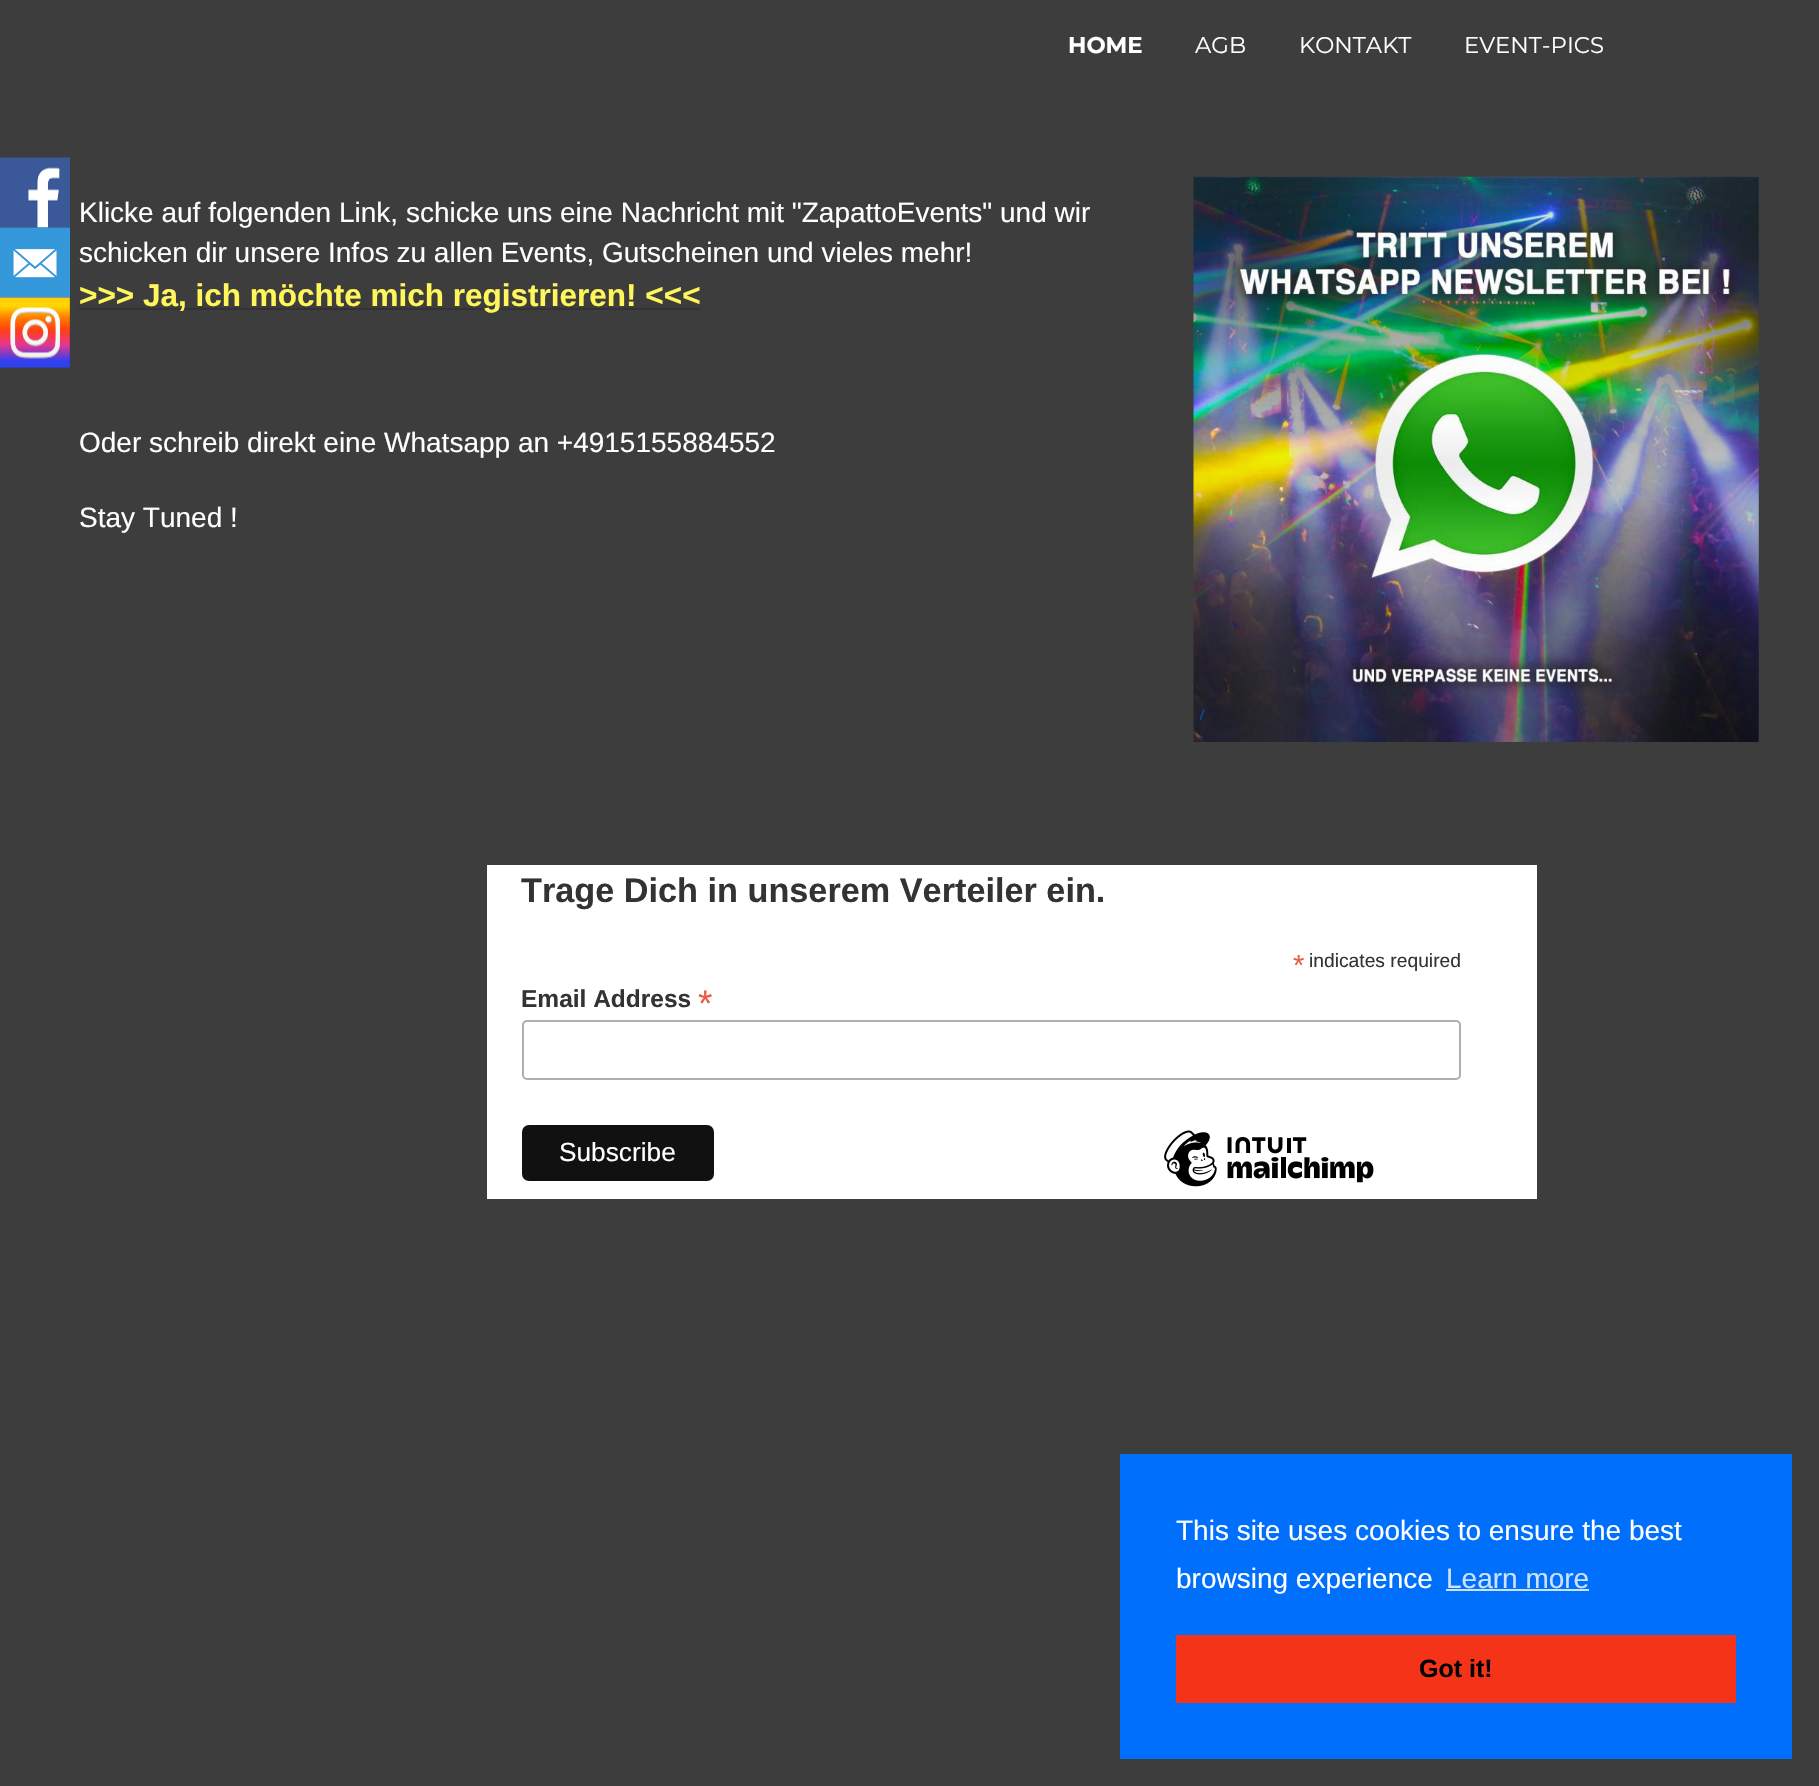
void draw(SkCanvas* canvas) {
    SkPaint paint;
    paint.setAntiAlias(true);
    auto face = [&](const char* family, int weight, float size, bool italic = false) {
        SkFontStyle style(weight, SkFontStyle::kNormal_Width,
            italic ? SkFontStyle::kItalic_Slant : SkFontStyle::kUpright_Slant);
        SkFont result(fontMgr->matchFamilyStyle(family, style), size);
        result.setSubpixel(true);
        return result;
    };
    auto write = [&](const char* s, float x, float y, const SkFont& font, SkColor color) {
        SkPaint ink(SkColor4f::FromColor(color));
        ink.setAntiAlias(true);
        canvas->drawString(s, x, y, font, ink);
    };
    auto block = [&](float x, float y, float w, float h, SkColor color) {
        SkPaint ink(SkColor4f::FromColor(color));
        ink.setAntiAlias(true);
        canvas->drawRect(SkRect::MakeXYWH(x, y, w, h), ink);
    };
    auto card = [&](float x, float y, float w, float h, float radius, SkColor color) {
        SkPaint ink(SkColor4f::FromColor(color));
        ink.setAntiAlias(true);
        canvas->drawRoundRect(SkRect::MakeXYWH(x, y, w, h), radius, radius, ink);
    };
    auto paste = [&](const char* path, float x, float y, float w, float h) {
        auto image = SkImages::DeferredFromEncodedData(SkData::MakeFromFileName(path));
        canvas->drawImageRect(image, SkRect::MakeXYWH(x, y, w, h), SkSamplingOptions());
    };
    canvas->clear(SkColorSetRGB(61, 61, 61));
    auto kFont1 = face("Montserrat", 700, 22.75f);
    write("HOME", 1068, 53, kFont1, SK_ColorWHITE);
    auto kFont2 = face("Montserrat", 400, 22.75f);
    write("AGB", 1195, 53, kFont2, SK_ColorWHITE);
    write("KONTAKT", 1299, 53, kFont2, SK_ColorWHITE);
    write("EVENT-PICS", 1464, 53, kFont2, SK_ColorWHITE);
    paste("pic1.png", 0, 157, 70, 71);
    paste("pic2.png", 0, 227, 70, 71);
    paste("pic3.png", 0, 297, 70, 71);
    auto kFont3 = face("Liberation Sans", 400, 28);
    write("Klicke auf folgenden Link, schicke uns eine Nachricht mit \"ZapattoEvents\" und wir", 79, 222, kFont3, SK_ColorWHITE);
    write("schicken dir unsere Infos zu allen Events, Gutscheinen und vieles mehr!", 79, 262, kFont3, SK_ColorWHITE);
    block(79, 308, 621, 2, SkColorSetRGB(51, 51, 51));
    auto kFont4 = face("Liberation Sans", 700, 31.5f);
    write(">>> Ja, ich möchte mich registrieren! <<<", 79, 306, kFont4, SkColorSetRGB(254, 246, 90));
    write("Oder schreib direkt eine Whatsapp an +4915155884552", 79, 452, kFont3, SK_ColorWHITE);
    write("Stay Tuned !", 79, 527, kFont3, SK_ColorWHITE);
    paste("pic4.png", 1193, 176, 566, 566);
    block(487, 865, 1050, 334, SK_ColorWHITE);
    auto kFont5 = face("Liberation Sans", 700, 34.25f);
    write("Trage Dich in unserem Verteiler ein.", 521, 902, kFont5, SkColorSetRGB(51, 51, 51));
    auto kFont6 = face("Liberation Sans", 400, 29);
    write("*", 1293, 975, kFont6, SkColorSetRGB(232, 92, 65));
    auto kFont7 = face("Liberation Sans", 400, 19.25f);
    write("indicates required", 1309, 967, kFont7, SkColorSetRGB(51, 51, 51));
    auto kFont8 = face("Liberation Sans", 700, 24.5f);
    write("Email Address", 521, 1007, kFont8, SkColorSetRGB(51, 51, 51));
    auto kFont9 = face("Liberation Sans", 400, 37);
    write("*", 698, 1016, kFont9, SkColorSetRGB(232, 92, 65));
    paint.setStyle(SkPaint::kStroke_Style);
    paint.setStrokeWidth(2);
    paint.setColor(SkColorSetRGB(171, 176, 178));
    canvas->drawRoundRect(SkRect::MakeXYWH(523, 1021, 937, 58), 4, 4, paint);
    card(522, 1125, 192, 56, 7, SkColorSetRGB(17, 17, 17));
    auto kFont10 = face("Liberation Sans", 400, 26.25f);
    write("Subscribe", 559, 1161, kFont10, SK_ColorWHITE);
    paste("pic5.png", 1164, 1130, 210, 57);
    block(1120, 1454, 672, 305, SkColorSetRGB(0, 111, 252));
    write("This site uses cookies to ensure the best", 1176, 1540, kFont3, SK_ColorWHITE);
    write("browsing experience", 1176, 1588, kFont3, SK_ColorWHITE);
    write("Learn more", 1446, 1588, kFont3, SkColorSetRGB(204, 226, 254));
    block(1446, 1589, 143, 2, SkColorSetRGB(204, 226, 254));
    block(1176, 1635, 560, 68, SkColorSetRGB(244, 51, 25));
    auto kFont11 = face("Liberation Sans", 700, 25);
    write("Got it!", 1419, 1677, kFont11, SK_ColorBLACK);
}
